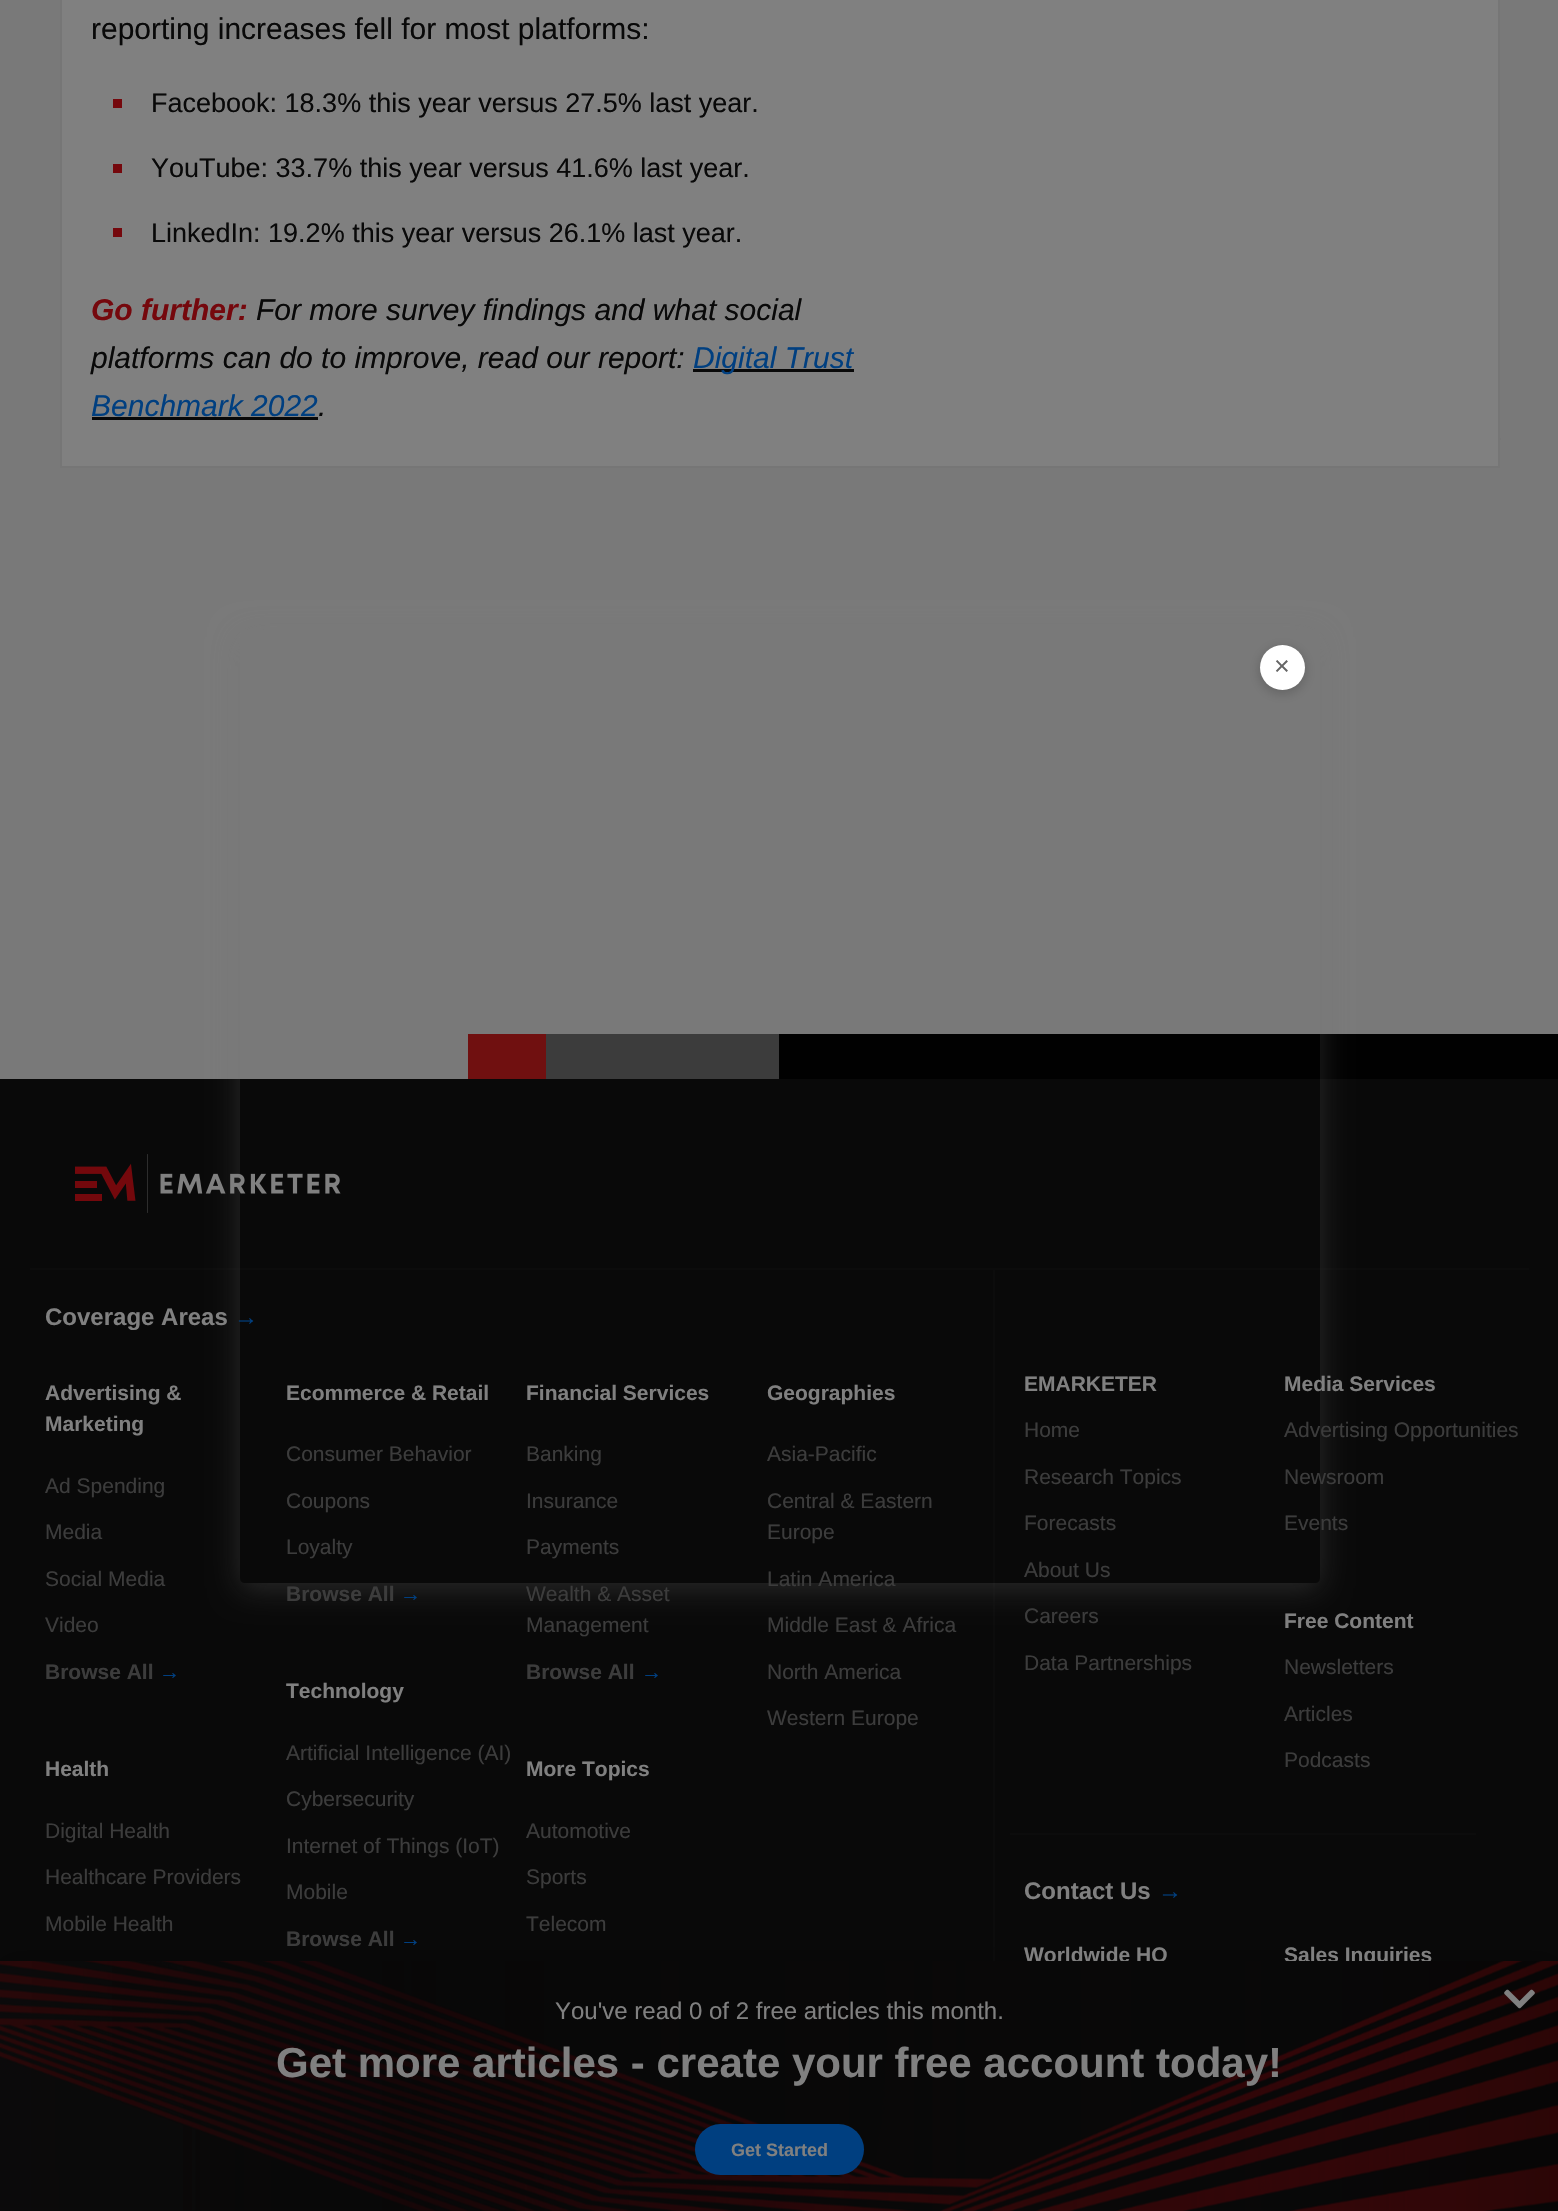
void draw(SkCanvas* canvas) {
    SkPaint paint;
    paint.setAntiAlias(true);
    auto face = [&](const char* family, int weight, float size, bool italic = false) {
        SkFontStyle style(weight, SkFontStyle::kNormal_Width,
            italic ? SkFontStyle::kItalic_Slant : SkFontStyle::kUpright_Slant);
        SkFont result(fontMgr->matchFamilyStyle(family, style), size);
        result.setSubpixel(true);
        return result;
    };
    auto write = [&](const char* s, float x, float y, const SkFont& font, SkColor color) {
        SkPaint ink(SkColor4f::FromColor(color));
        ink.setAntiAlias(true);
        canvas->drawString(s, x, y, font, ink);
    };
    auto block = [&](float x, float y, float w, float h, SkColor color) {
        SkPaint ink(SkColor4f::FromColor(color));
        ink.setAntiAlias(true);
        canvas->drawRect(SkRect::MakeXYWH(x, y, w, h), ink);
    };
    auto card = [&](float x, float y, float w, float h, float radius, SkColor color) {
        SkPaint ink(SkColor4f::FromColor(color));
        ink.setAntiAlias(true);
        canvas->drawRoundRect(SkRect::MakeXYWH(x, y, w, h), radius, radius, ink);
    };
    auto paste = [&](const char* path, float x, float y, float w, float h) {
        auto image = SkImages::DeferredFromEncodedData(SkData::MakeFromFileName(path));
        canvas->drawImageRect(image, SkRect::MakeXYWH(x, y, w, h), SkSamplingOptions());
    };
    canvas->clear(SkColorSetRGB(121, 121, 121));
    block(1499, 438, 2, 2, SkColorSetRGB(118, 118, 118));
    paint.setColor(SkColorSetRGB(128, 128, 128));
    canvas->drawRect(SkRect::MakeXYWH(61, -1, 1438, 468), paint);
    paint.setStyle(SkPaint::kStroke_Style);
    paint.setStrokeWidth(2);
    paint.setColor(SkColorSetRGB(118, 118, 118));
    canvas->drawRect(SkRect::MakeXYWH(61, -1, 1438, 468), paint);
    auto kFont1 = face("Liberation Sans", 400, 30);
    write("reporting increases fell for most platforms:", 91, 39, kFont1, SkColorSetRGB(9, 9, 9));
    block(113, 99, 9, 9, SkColorSetRGB(117, 8, 13));
    auto kFont2 = face("Liberation Sans", 400, 27);
    write("Facebook: 18.3% this year versus 27.5% last year.", 151, 112, kFont2, SkColorSetRGB(9, 9, 9));
    block(113, 164, 9, 9, SkColorSetRGB(117, 8, 13));
    write("YouTube: 33.7% this year versus 41.6% last year.", 151, 177, kFont2, SkColorSetRGB(9, 9, 9));
    block(113, 228, 9, 9, SkColorSetRGB(117, 8, 13));
    write("LinkedIn: 19.2% this year versus 26.1% last year.", 151, 242, kFont2, SkColorSetRGB(9, 9, 9));
    auto kFont3 = face("Liberation Sans", 700, 30, true);
    write("Go further:", 91, 320, kFont3, SkColorSetRGB(117, 8, 13));
    auto kFont4 = face("Liberation Sans", 400, 30, true);
    write("For more survey findings and what social", 256, 320, kFont4, SkColorSetRGB(9, 9, 9));
    write("platforms can do to improve, read our report:", 91, 368, kFont4, SkColorSetRGB(9, 9, 9));
    block(693, 369, 161, 3, SkColorSetRGB(9, 9, 9));
    write("Digital Trust", 693, 368, kFont4, SkColorSetRGB(0, 63, 128));
    write("Benchmark 2022", 91, 416, kFont4, SkColorSetRGB(0, 63, 128));
    write(".", 318, 416, kFont4, SkColorSetRGB(9, 9, 9));
    block(92, 417, 226, 3, SkColorSetRGB(9, 9, 9));
    block(0, 1079, 1558, 1132, SkColorSetRGB(9, 9, 9));
    block(30, 1268, 1499, 2, SkColorSetRGB(12, 12, 12));
    block(993, 1269, 2, 692, SkColorSetRGB(12, 12, 12));
    paint.setStyle(SkPaint::kFill_Style);
    paint.setColor(SkColorSetARGB(51, 0, 0, 0));
    paint.setMaskFilter(SkMaskFilter::MakeBlur(kNormal_SkBlurStyle, 12));
    canvas->drawRect(SkRect::MakeXYWH(0, 1958, 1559, 250), paint);
    paint.setMaskFilter(nullptr);
    auto kFont5 = face("Liberation Sans", 700, 21);
    write("Worldwide HQ", 1024, 1962, kFont5, SkColorSetRGB(128, 128, 128));
    write("Sales Inquiries", 1284, 1962, kFont5, SkColorSetRGB(128, 128, 128));
    paste("pic1.png", 0, 1961, 1558, 250);
    paste("pic2.png", 1504, 1989, 31, 20);
    auto kFont6 = face("Liberation Sans", 400, 24);
    write("You've read 0 of 2 free articles this month.", 555, 2019, kFont6, SkColorSetRGB(128, 128, 128));
    auto kFont7 = face("Liberation Sans", 700, 42);
    write("Get more articles - create your free account today!", 276, 2077, kFont7, SkColorSetRGB(128, 128, 128));
    card(695, 2124, 169, 51, 25.5f, SkColorSetRGB(0, 63, 128));
    auto kFont8 = face("Liberation Sans", 700, 18);
    write("Get Started", 731, 2156, kFont8, SkColorSetRGB(128, 128, 128));
    block(468, 1034, 78, 45, SkColorSetRGB(112, 16, 16));
    block(546, 1034, 233, 45, SkColorSetRGB(60, 60, 60));
    block(779, 1034, 779, 45, SkColorSetRGB(1, 1, 1));
    paste("pic3.png", 75, 1154, 266, 59);
    canvas->save();
    canvas->clipPath(SkPathBuilder(SkPathFillType::kEvenOdd).moveTo(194, 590).lineTo(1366, 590).lineTo(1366, 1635).lineTo(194, 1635).close().moveTo(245, 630).lineTo(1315, 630).cubicTo(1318, 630, 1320, 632, 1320, 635).lineTo(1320, 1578).cubicTo(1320, 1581, 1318, 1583, 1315, 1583).lineTo(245, 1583).cubicTo(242, 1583, 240, 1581, 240, 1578).lineTo(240, 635).cubicTo(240, 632, 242, 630, 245, 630).close().detach(), true);
    paint.setColor(SkColorSetARGB(77, 116, 116, 116));
    paint.setMaskFilter(SkMaskFilter::MakeBlur(kNormal_SkBlurStyle, 15));
    canvas->drawRoundRect(SkRect::MakeXYWH(240, 636, 1080, 953), 5, 5, paint);
    paint.setMaskFilter(nullptr);
    canvas->restore();
    paint.setColor(SkColorSetARGB(51, 0, 0, 0));
    paint.setMaskFilter(SkMaskFilter::MakeBlur(kNormal_SkBlurStyle, 6));
    canvas->drawRoundRect(SkRect::MakeXYWH(1260, 648, 45, 45), 22.5f, 22.5f, paint);
    paint.setMaskFilter(nullptr);
    paint.setColor(SK_ColorWHITE);
    canvas->drawCircle(1282.5f, 667.5f, 22.5f, paint);
    write("×", 1274, 675, kFont2, SkColorSetRGB(102, 102, 102));
    auto kFont9 = face("Liberation Sans", 700, 24);
    write("Coverage Areas", 45, 1325, kFont9, SkColorSetRGB(128, 128, 128));
    write("→", 234, 1325, kFont9, SkColorSetRGB(0, 63, 128));
    write("Advertising &", 45, 1400, kFont5, SkColorSetRGB(128, 128, 128));
    write("Marketing", 45, 1431, kFont5, SkColorSetRGB(128, 128, 128));
    auto kFont10 = face("Liberation Sans", 400, 21);
    write("Ad Spending", 45, 1493, kFont10, SkColorSetRGB(60, 60, 60));
    write("Media", 45, 1539, kFont10, SkColorSetRGB(60, 60, 60));
    write("Social Media", 45, 1586, kFont10, SkColorSetRGB(60, 60, 60));
    write("Video", 45, 1632, kFont10, SkColorSetRGB(60, 60, 60));
    write("Browse All", 45, 1679, kFont5, SkColorSetRGB(60, 60, 60));
    write("→", 159, 1679, kFont5, SkColorSetRGB(0, 63, 128));
    write("Health", 45, 1776, kFont5, SkColorSetRGB(128, 128, 128));
    write("Digital Health", 45, 1838, kFont10, SkColorSetRGB(60, 60, 60));
    write("Healthcare Providers", 45, 1884, kFont10, SkColorSetRGB(60, 60, 60));
    write("Mobile Health", 45, 1931, kFont10, SkColorSetRGB(60, 60, 60));
    write("Ecommerce & Retail", 286, 1400, kFont5, SkColorSetRGB(128, 128, 128));
    write("Consumer Behavior", 286, 1461, kFont10, SkColorSetRGB(60, 60, 60));
    write("Coupons", 286, 1508, kFont10, SkColorSetRGB(60, 60, 60));
    write("Loyalty", 286, 1554, kFont10, SkColorSetRGB(60, 60, 60));
    write("Browse All", 286, 1601, kFont5, SkColorSetRGB(60, 60, 60));
    write("→", 400, 1601, kFont5, SkColorSetRGB(0, 63, 128));
    write("Technology", 286, 1698, kFont5, SkColorSetRGB(128, 128, 128));
    write("Artificial Intelligence (AI)", 286, 1760, kFont10, SkColorSetRGB(60, 60, 60));
    write("Cybersecurity", 286, 1806, kFont10, SkColorSetRGB(60, 60, 60));
    write("Internet of Things (IoT)", 286, 1853, kFont10, SkColorSetRGB(60, 60, 60));
    write("Mobile", 286, 1899, kFont10, SkColorSetRGB(60, 60, 60));
    write("Browse All", 286, 1946, kFont5, SkColorSetRGB(60, 60, 60));
    write("→", 400, 1946, kFont5, SkColorSetRGB(0, 63, 128));
    write("Financial Services", 526, 1400, kFont5, SkColorSetRGB(128, 128, 128));
    write("Banking", 526, 1461, kFont10, SkColorSetRGB(60, 60, 60));
    write("Insurance", 526, 1508, kFont10, SkColorSetRGB(60, 60, 60));
    write("Payments", 526, 1554, kFont10, SkColorSetRGB(60, 60, 60));
    write("Wealth & Asset", 526, 1601, kFont10, SkColorSetRGB(60, 60, 60));
    write("Management", 526, 1632, kFont10, SkColorSetRGB(60, 60, 60));
    write("Browse All", 526, 1679, kFont5, SkColorSetRGB(60, 60, 60));
    write("→", 641, 1679, kFont5, SkColorSetRGB(0, 63, 128));
    write("More Topics", 526, 1776, kFont5, SkColorSetRGB(128, 128, 128));
    write("Automotive", 526, 1838, kFont10, SkColorSetRGB(60, 60, 60));
    write("Sports", 526, 1884, kFont10, SkColorSetRGB(60, 60, 60));
    write("Telecom", 526, 1931, kFont10, SkColorSetRGB(60, 60, 60));
    write("Geographies", 767, 1400, kFont5, SkColorSetRGB(128, 128, 128));
    write("Asia-Pacific", 767, 1461, kFont10, SkColorSetRGB(60, 60, 60));
    write("Central & Eastern", 767, 1508, kFont10, SkColorSetRGB(60, 60, 60));
    write("Europe", 767, 1539, kFont10, SkColorSetRGB(60, 60, 60));
    write("Latin America", 767, 1586, kFont10, SkColorSetRGB(60, 60, 60));
    write("Middle East & Africa", 767, 1632, kFont10, SkColorSetRGB(60, 60, 60));
    write("North America", 767, 1679, kFont10, SkColorSetRGB(60, 60, 60));
    write("Western Europe", 767, 1725, kFont10, SkColorSetRGB(60, 60, 60));
    write("EMARKETER", 1024, 1391, kFont5, SkColorSetRGB(128, 128, 128));
    write("Home", 1024, 1437, kFont10, SkColorSetRGB(60, 60, 60));
    write("Research Topics", 1024, 1484, kFont10, SkColorSetRGB(60, 60, 60));
    write("Forecasts", 1024, 1530, kFont10, SkColorSetRGB(60, 60, 60));
    write("About Us", 1024, 1577, kFont10, SkColorSetRGB(60, 60, 60));
    write("Careers", 1024, 1623, kFont10, SkColorSetRGB(60, 60, 60));
    write("Data Partnerships", 1024, 1670, kFont10, SkColorSetRGB(60, 60, 60));
    write("Media Services", 1284, 1391, kFont5, SkColorSetRGB(128, 128, 128));
    write("Advertising Opportunities", 1284, 1437, kFont10, SkColorSetRGB(60, 60, 60));
    write("Newsroom", 1284, 1484, kFont10, SkColorSetRGB(60, 60, 60));
    write("Events", 1284, 1530, kFont10, SkColorSetRGB(60, 60, 60));
    write("Free Content", 1284, 1628, kFont5, SkColorSetRGB(128, 128, 128));
    write("Newsletters", 1284, 1674, kFont10, SkColorSetRGB(60, 60, 60));
    write("Articles", 1284, 1721, kFont10, SkColorSetRGB(60, 60, 60));
    write("Podcasts", 1284, 1767, kFont10, SkColorSetRGB(60, 60, 60));
    block(1010, 1833, 466, 2, SkColorSetRGB(12, 12, 12));
    write("Contact Us", 1024, 1899, kFont9, SkColorSetRGB(128, 128, 128));
    write("→", 1158, 1899, kFont9, SkColorSetRGB(0, 63, 128));
}
